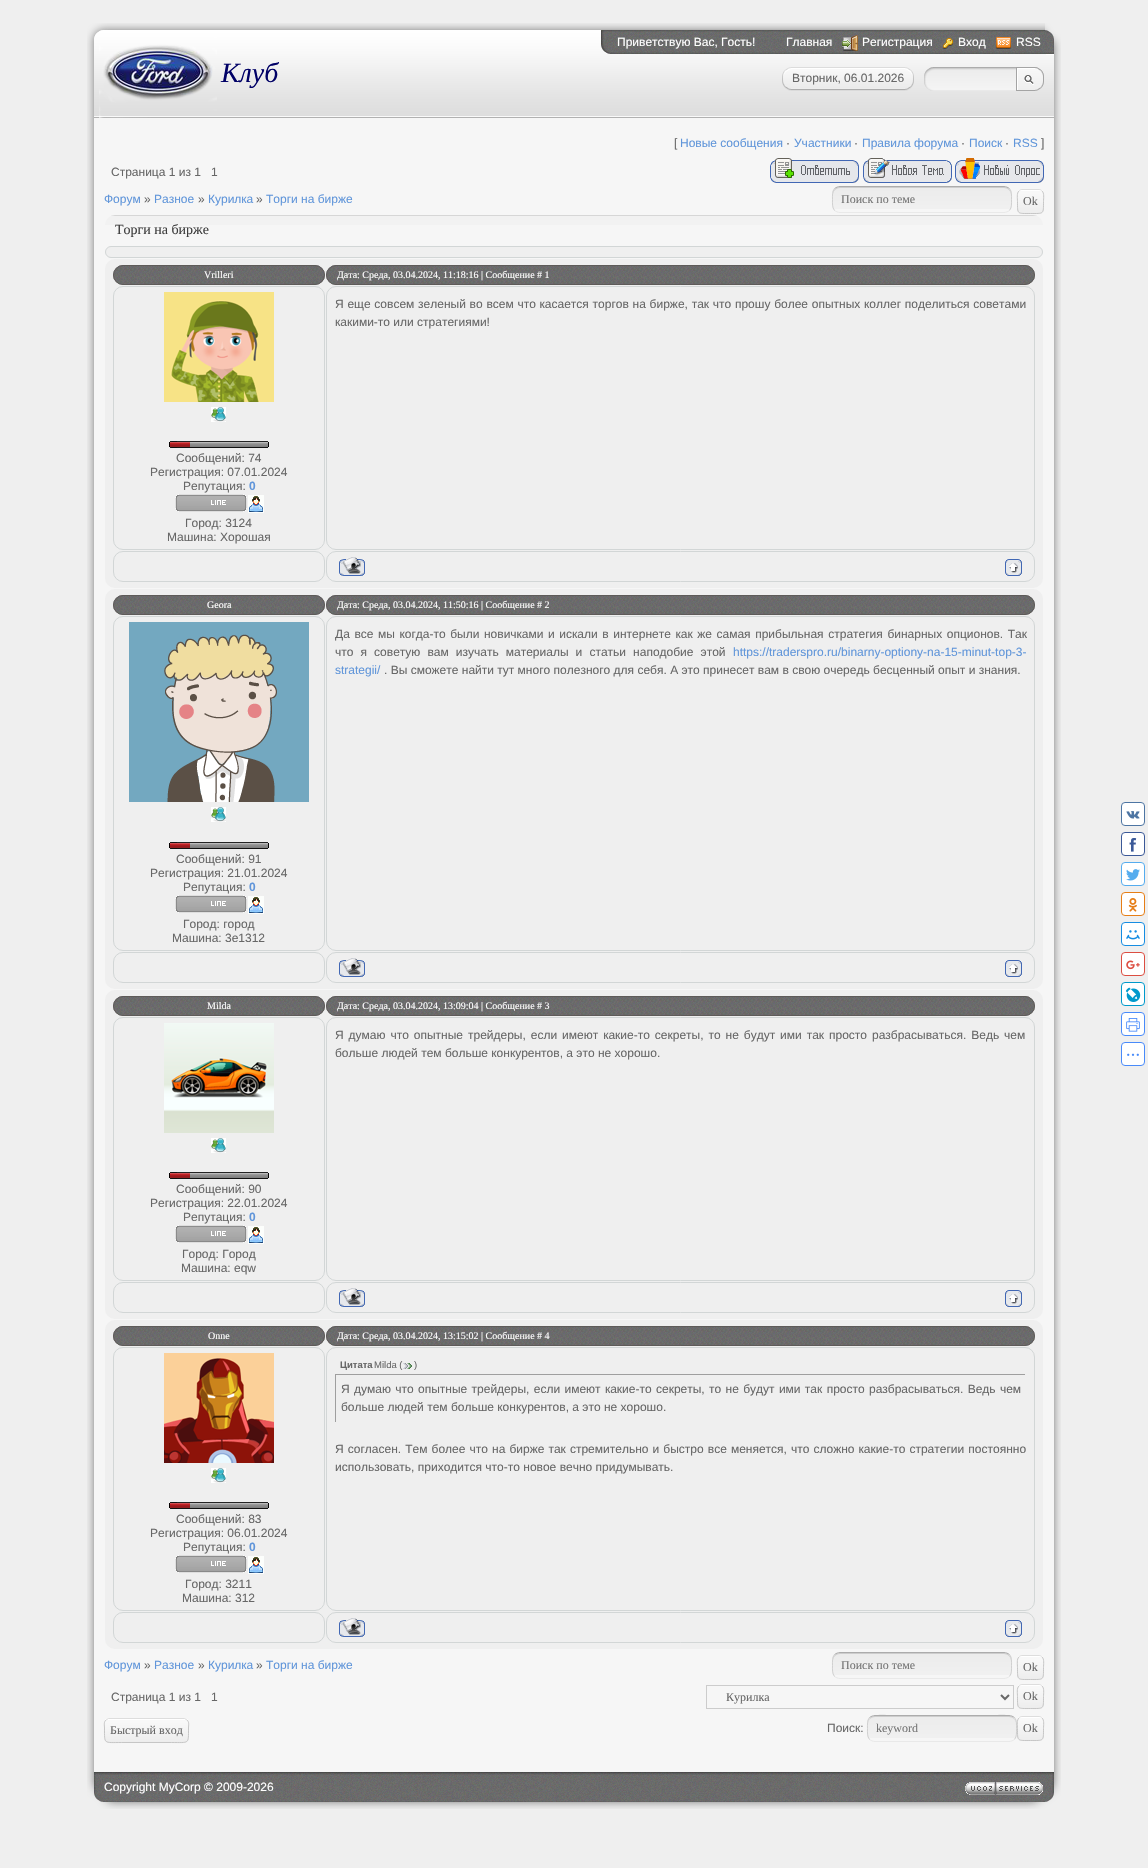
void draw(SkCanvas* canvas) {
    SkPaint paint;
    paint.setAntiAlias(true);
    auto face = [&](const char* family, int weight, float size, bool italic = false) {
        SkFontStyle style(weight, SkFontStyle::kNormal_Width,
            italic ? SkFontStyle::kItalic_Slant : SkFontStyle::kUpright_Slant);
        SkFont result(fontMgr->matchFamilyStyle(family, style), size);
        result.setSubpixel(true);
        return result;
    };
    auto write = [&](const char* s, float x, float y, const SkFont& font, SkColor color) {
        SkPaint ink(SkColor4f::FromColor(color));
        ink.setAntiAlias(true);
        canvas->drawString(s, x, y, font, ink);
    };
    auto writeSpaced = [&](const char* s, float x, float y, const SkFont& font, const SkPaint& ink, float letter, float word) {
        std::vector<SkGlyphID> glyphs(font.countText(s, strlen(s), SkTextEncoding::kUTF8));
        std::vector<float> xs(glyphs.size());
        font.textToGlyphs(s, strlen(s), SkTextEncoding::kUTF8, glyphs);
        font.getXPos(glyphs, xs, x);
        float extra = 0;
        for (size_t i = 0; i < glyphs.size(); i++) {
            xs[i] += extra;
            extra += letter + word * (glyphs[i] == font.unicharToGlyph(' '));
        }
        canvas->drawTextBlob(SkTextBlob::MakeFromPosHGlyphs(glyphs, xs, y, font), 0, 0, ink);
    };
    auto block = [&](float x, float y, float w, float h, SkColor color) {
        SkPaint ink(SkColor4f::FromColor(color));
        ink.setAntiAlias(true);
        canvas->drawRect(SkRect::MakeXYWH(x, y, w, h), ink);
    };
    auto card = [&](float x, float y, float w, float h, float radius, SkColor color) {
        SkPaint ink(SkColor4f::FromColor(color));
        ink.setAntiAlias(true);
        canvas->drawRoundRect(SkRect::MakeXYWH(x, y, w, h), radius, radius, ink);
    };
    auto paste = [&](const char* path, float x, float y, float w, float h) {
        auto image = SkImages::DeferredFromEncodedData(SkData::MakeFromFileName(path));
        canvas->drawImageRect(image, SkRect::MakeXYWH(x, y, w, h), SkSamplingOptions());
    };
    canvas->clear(SkColorSetRGB(239, 239, 239));
    paste("pic1.png", 87, 23, 974, 95);
    paste("pic2.png", 601, 30, 16, 24);
    paste("pic3.png", 617, 30, 428, 24);
    auto kFont1 = face("Liberation Sans", 400, 12);
    write("Приветствую Вас, Гость!", 617, 46, kFont1, SK_ColorWHITE);
    write("Главная", 786, 46, kFont1, SK_ColorWHITE);
    paste("pic4.png", 842, 35, 16, 16);
    write("Регистрация", 862, 46, kFont1, SK_ColorWHITE);
    paste("pic5.png", 943, 38, 10, 11);
    write("Вход", 958, 46, kFont1, SK_ColorWHITE);
    paste("pic6.png", 996, 37, 15, 12);
    write("RSS", 1016, 46, kFont1, SK_ColorWHITE);
    auto kFont2 = face("Liberation Serif", 400, 28, true);
    write("Клуб", 221, 82, kFont2, SkColorSetRGB(0, 0, 102));
    paste("pic7.png", 782, 67, 10, 24);
    paste("pic8.png", 792, 67, 112, 24);
    write("Вторник, 06.01.2026", 792, 82, kFont1, SkColorSetRGB(103, 103, 103));
    paste("pic9.png", 904, 67, 10, 24);
    paste("pic10.png", 924, 67, 120, 24);
    paste("pic11.png", 87, 118, 974, 1654);
    write("[", 674, 147, kFont1, SkColorSetRGB(103, 103, 103));
    write("Новые сообщения", 680, 147, kFont1, SkColorSetRGB(97, 150, 218));
    write("·", 786, 147, kFont1, SkColorSetRGB(103, 103, 103));
    write("Участники", 794, 147, kFont1, SkColorSetRGB(97, 150, 218));
    write("·", 854, 147, kFont1, SkColorSetRGB(103, 103, 103));
    write("Правила форума", 862, 147, kFont1, SkColorSetRGB(97, 150, 218));
    write("·", 961, 147, kFont1, SkColorSetRGB(103, 103, 103));
    write("Поиск", 969, 147, kFont1, SkColorSetRGB(97, 150, 218));
    write("·", 1005, 147, kFont1, SkColorSetRGB(103, 103, 103));
    write("RSS", 1013, 147, kFont1, SkColorSetRGB(97, 150, 218));
    write("]", 1041, 147, kFont1, SkColorSetRGB(103, 103, 103));
    write("Страница 1 из 1", 111, 176, kFont1, SkColorSetRGB(103, 103, 103));
    write("1", 211, 176, kFont1, SkColorSetRGB(103, 103, 103));
    paste("pic12.png", 770, 158, 89, 25);
    paste("pic13.png", 863, 158, 89, 25);
    paste("pic14.png", 955, 158, 89, 25);
    write("Форум", 104, 203, kFont1, SkColorSetRGB(97, 150, 218));
    write("»", 144, 203, kFont1, SkColorSetRGB(103, 103, 103));
    write("Разное", 154, 203, kFont1, SkColorSetRGB(97, 150, 218));
    write("»", 198, 203, kFont1, SkColorSetRGB(103, 103, 103));
    write("Курилка", 208, 203, kFont1, SkColorSetRGB(97, 150, 218));
    write("»", 256, 203, kFont1, SkColorSetRGB(103, 103, 103));
    write("Торги на бирже", 266, 203, kFont1, SkColorSetRGB(97, 150, 218));
    paste("pic15.png", 832, 187, 180, 22);
    paint.setColor(SkColorSetRGB(205, 205, 205));
    canvas->drawPath(SkPathBuilder().moveTo(840, 188).lineTo(1004, 188).cubicTo(1008, 188, 1011, 191, 1011, 195).lineTo(1011, 194).cubicTo(1011, 190, 1008, 187, 1004, 187).lineTo(840, 187).cubicTo(836, 187, 833, 190, 833, 194).lineTo(833, 195).cubicTo(833, 191, 836, 188, 840, 188).close().detach(), paint);
    paint.setStyle(SkPaint::kStroke_Style);
    paint.setStrokeWidth(1);
    paint.setColor(SkColorSetRGB(172, 172, 172));
    canvas->drawPath(SkPathBuilder().moveTo(834.5f, 188.5f).cubicTo(836, 187.5f, 838, 186.5f, 840, 186.5f).lineTo(1004, 186.5f).cubicTo(1006, 186.5f, 1008, 187.5f, 1009.5f, 188.5f).detach(), paint);
    paint.setColor(SkColorSetRGB(208, 208, 208));
    canvas->drawPath(SkPathBuilder().moveTo(1009.5f, 188.5f).cubicTo(1012, 191.5f, 1011.5f, 196, 1011.5f, 199.5f).cubicTo(1011.5f, 203, 1012, 207.5f, 1009.5f, 210.5f).detach(), paint);
    paint.setColor(SkColorSetRGB(233, 233, 233));
    canvas->drawPath(SkPathBuilder().moveTo(1009.5f, 210.5f).cubicTo(1008, 211.5f, 1006, 212.5f, 1004, 212.5f).lineTo(840, 212.5f).cubicTo(838, 212.5f, 836, 211.5f, 834.5f, 210.5f).detach(), paint);
    paint.setColor(SkColorSetRGB(208, 208, 208));
    canvas->drawPath(SkPathBuilder().moveTo(834.5f, 210.5f).cubicTo(832, 207.5f, 832.5f, 203, 832.5f, 199.5f).cubicTo(832.5f, 196, 832, 191.5f, 834.5f, 188.5f).detach(), paint);
    auto kFont3 = face("Liberation Serif", 400, 12);
    write("Поиск по теме", 841, 203, kFont3, SkColorSetRGB(117, 117, 117));
    paste("pic16.png", 1017, 190, 27, 24);
    paint.setColor(SkColorSetRGB(221, 221, 221));
    canvas->drawPath(SkPathBuilder().moveTo(1019, 191).cubicTo(1019.5f, 190, 1021, 189.5f, 1022, 189.5f).lineTo(1039, 189.5f).cubicTo(1040, 189.5f, 1041.5f, 190, 1042, 191).detach(), paint);
    paint.setColor(SkColorSetRGB(198, 198, 198));
    canvas->drawPath(SkPathBuilder().moveTo(1042, 191).cubicTo(1044.5f, 193, 1043.5f, 198.5f, 1043.5f, 201.5f).cubicTo(1043.5f, 214.5f, 1044, 213.5f, 1030.5f, 213.5f).cubicTo(1017, 213.5f, 1017.5f, 214.5f, 1017.5f, 201.5f).cubicTo(1017.5f, 198.5f, 1016.5f, 193, 1019, 191).detach(), paint);
    write("Ok", 1023, 205, kFont3, SkColorSetRGB(103, 103, 103));
    paste("pic17.png", 105, 215, 938, 10);
    auto kFont4 = face("Liberation Serif", 400, 14);
    write("Торги на бирже", 115, 234, kFont4, SkColorSetRGB(61, 61, 61));
    paint.setStyle(SkPaint::kFill_Style);
    paint.setColor(SkColorSetRGB(239, 239, 239));
    canvas->drawRoundRect(SkRect::MakeXYWH(105.5f, 246.5f, 937, 11), 5.5f, 5.5f, paint);
    paint.setStyle(SkPaint::kStroke_Style);
    paint.setColor(SkColorSetRGB(210, 214, 214));
    canvas->drawRoundRect(SkRect::MakeXYWH(105.5f, 246.5f, 937, 11), 5.5f, 5.5f, paint);
    card(105, 259, 938, 329, 10, SkColorSetRGB(239, 239, 239));
    paste("pic18.png", 113, 265, 212, 20);
    paint.setColor(SkColorSetRGB(94, 91, 89));
    canvas->drawRoundRect(SkRect::MakeXYWH(113.5f, 265.5f, 211, 19), 9.5f, 9.5f, paint);
    auto kFont5 = face("Liberation Serif", 400, 10);
    write("Vrilleri", 204, 278, kFont5, SK_ColorWHITE);
    paste("pic19.png", 326, 265, 709, 20);
    canvas->drawRoundRect(SkRect::MakeXYWH(326.5f, 265.5f, 708, 19), 9.5f, 9.5f, paint);
    write("Дата: Среда, 03.04.2024, 11:18:16 | Сообщение # 1", 337, 278, kFont5, SK_ColorWHITE);
    paint.setColor(SkColorSetRGB(210, 214, 214));
    canvas->drawRoundRect(SkRect::MakeXYWH(326.5f, 286.5f, 708, 263), 9.5f, 9.5f, paint);
    paint.setStyle(SkPaint::kFill_Style);
    paint.setColor(SkColorSetRGB(103, 103, 103));
    writeSpaced("Я еще совсем зеленый во всем что касается торгов на бирже, так что прошу более опытных коллег поделиться советами", 335, 308, kFont1, paint, 0, 0.4f);
    write("какими-то или стратегиями!", 335, 326, kFont1, SkColorSetRGB(103, 103, 103));
    paint.setStyle(SkPaint::kStroke_Style);
    paint.setColor(SkColorSetRGB(210, 214, 214));
    canvas->drawRoundRect(SkRect::MakeXYWH(113.5f, 286.5f, 211, 263), 9.5f, 9.5f, paint);
    paste("pic20.png", 164, 292, 110, 110);
    paste("pic21.png", 211, 407, 15, 15);
    paste("pic22.png", 169, 441, 100, 7);
    write("Сообщений: 74", 176, 462, kFont1, SkColorSetRGB(103, 103, 103));
    write("Регистрация: 07.01.2024", 150, 476, kFont1, SkColorSetRGB(103, 103, 103));
    write("Репутация:", 183, 490, kFont1, SkColorSetRGB(103, 103, 103));
    auto kFont6 = face("Liberation Sans", 700, 12);
    write("0", 249, 490, kFont6, SkColorSetRGB(97, 150, 218));
    paste("pic23.png", 175, 494, 72, 18);
    paste("pic24.png", 248, 495, 16, 18);
    write("Город: 3124", 185, 527, kFont1, SkColorSetRGB(103, 103, 103));
    write("Машина: Хорошая", 167, 541, kFont1, SkColorSetRGB(103, 103, 103));
    canvas->drawRoundRect(SkRect::MakeXYWH(113.5f, 551.5f, 211, 30), 9.5f, 9.5f, paint);
    canvas->drawRoundRect(SkRect::MakeXYWH(326.5f, 551.5f, 708, 30), 9.5f, 9.5f, paint);
    paste("pic25.png", 339, 557, 26, 19);
    paste("pic26.png", 1005, 559, 17, 17);
    card(105, 589, 938, 400, 10, SkColorSetRGB(239, 239, 239));
    paste("pic18.png", 113, 595, 212, 20);
    paint.setColor(SkColorSetRGB(94, 91, 89));
    canvas->drawRoundRect(SkRect::MakeXYWH(113.5f, 595.5f, 211, 19), 9.5f, 9.5f, paint);
    write("Geora", 207, 608, kFont5, SK_ColorWHITE);
    paste("pic19.png", 326, 595, 709, 20);
    canvas->drawRoundRect(SkRect::MakeXYWH(326.5f, 595.5f, 708, 19), 9.5f, 9.5f, paint);
    write("Дата: Среда, 03.04.2024, 11:50:16 | Сообщение # 2", 337, 608, kFont5, SK_ColorWHITE);
    paint.setColor(SkColorSetRGB(210, 214, 214));
    canvas->drawRoundRect(SkRect::MakeXYWH(326.5f, 616.5f, 708, 334), 9.5f, 9.5f, paint);
    paint.setStyle(SkPaint::kFill_Style);
    paint.setColor(SkColorSetRGB(103, 103, 103));
    writeSpaced("Да все мы когда-то были новичками и искали в интернете как же самая прибыльная стратегия бинарных опционов. Так", 335, 638, kFont1, paint, 0, 1.25f);
    writeSpaced("что я советую вам изучать материалы и статьи наподобие этой", 335, 656, kFont1, paint, 0, 3.75f);
    write("https://traderspro.ru/binarny-optiony-na-15-minut-top-3-", 733, 656, kFont1, SkColorSetRGB(97, 150, 218));
    write("strategii/", 335, 674, kFont1, SkColorSetRGB(97, 150, 218));
    write(". Вы сможете найти тут много полезного для себя. А это принесет вам в свою очередь бесценный опыт и знания.", 384, 674, kFont1, SkColorSetRGB(103, 103, 103));
    paint.setStyle(SkPaint::kStroke_Style);
    paint.setColor(SkColorSetRGB(210, 214, 214));
    canvas->drawRoundRect(SkRect::MakeXYWH(113.5f, 616.5f, 211, 334), 9.5f, 9.5f, paint);
    paste("pic27.png", 129, 622, 180, 180);
    paste("pic21.png", 211, 807, 15, 15);
    paste("pic22.png", 169, 842, 100, 7);
    write("Сообщений: 91", 176, 863, kFont1, SkColorSetRGB(103, 103, 103));
    write("Регистрация: 21.01.2024", 150, 877, kFont1, SkColorSetRGB(103, 103, 103));
    write("Репутация:", 183, 891, kFont1, SkColorSetRGB(103, 103, 103));
    write("0", 249, 891, kFont6, SkColorSetRGB(97, 150, 218));
    paste("pic23.png", 175, 895, 72, 18);
    paste("pic24.png", 248, 896, 16, 18);
    write("Город: город", 183, 928, kFont1, SkColorSetRGB(103, 103, 103));
    write("Машина: 3e1312", 172, 942, kFont1, SkColorSetRGB(103, 103, 103));
    canvas->drawRoundRect(SkRect::MakeXYWH(113.5f, 952.5f, 211, 30), 9.5f, 9.5f, paint);
    canvas->drawRoundRect(SkRect::MakeXYWH(326.5f, 952.5f, 708, 30), 9.5f, 9.5f, paint);
    paste("pic25.png", 339, 958, 26, 19);
    paste("pic26.png", 1005, 960, 17, 17);
    card(105, 990, 938, 329, 10, SkColorSetRGB(239, 239, 239));
    paste("pic18.png", 113, 996, 212, 20);
    paint.setColor(SkColorSetRGB(94, 91, 89));
    canvas->drawRoundRect(SkRect::MakeXYWH(113.5f, 996.5f, 211, 19), 9.5f, 9.5f, paint);
    write("Milda", 207, 1009, kFont5, SK_ColorWHITE);
    paste("pic19.png", 326, 996, 709, 20);
    canvas->drawRoundRect(SkRect::MakeXYWH(326.5f, 996.5f, 708, 19), 9.5f, 9.5f, paint);
    write("Дата: Среда, 03.04.2024, 13:09:04 | Сообщение # 3", 337, 1009, kFont5, SK_ColorWHITE);
    paint.setColor(SkColorSetRGB(210, 214, 214));
    canvas->drawRoundRect(SkRect::MakeXYWH(326.5f, 1017.5f, 708, 263), 9.5f, 9.5f, paint);
    paint.setStyle(SkPaint::kFill_Style);
    paint.setColor(SkColorSetRGB(103, 103, 103));
    writeSpaced("Я думаю что опытные трейдеры, если имеют какие-то секреты, то не будут ими так просто разбрасываться. Ведь чем", 335, 1039, kFont1, paint, 0, 1.6f);
    write("больше людей тем больше конкурентов, а это не хорошо.", 335, 1057, kFont1, SkColorSetRGB(103, 103, 103));
    paint.setStyle(SkPaint::kStroke_Style);
    paint.setColor(SkColorSetRGB(210, 214, 214));
    canvas->drawRoundRect(SkRect::MakeXYWH(113.5f, 1017.5f, 211, 263), 9.5f, 9.5f, paint);
    paste("pic28.png", 164, 1023, 110, 110);
    paste("pic21.png", 211, 1138, 15, 15);
    paste("pic22.png", 169, 1172, 100, 7);
    write("Сообщений: 90", 176, 1193, kFont1, SkColorSetRGB(103, 103, 103));
    write("Регистрация: 22.01.2024", 150, 1207, kFont1, SkColorSetRGB(103, 103, 103));
    write("Репутация:", 183, 1221, kFont1, SkColorSetRGB(103, 103, 103));
    write("0", 249, 1221, kFont6, SkColorSetRGB(97, 150, 218));
    paste("pic23.png", 175, 1225, 72, 18);
    paste("pic24.png", 248, 1226, 16, 18);
    write("Город: Город", 182, 1258, kFont1, SkColorSetRGB(103, 103, 103));
    write("Машина: eqw", 181, 1272, kFont1, SkColorSetRGB(103, 103, 103));
    canvas->drawRoundRect(SkRect::MakeXYWH(113.5f, 1282.5f, 211, 30), 9.5f, 9.5f, paint);
    canvas->drawRoundRect(SkRect::MakeXYWH(326.5f, 1282.5f, 708, 30), 9.5f, 9.5f, paint);
    paste("pic25.png", 339, 1288, 26, 19);
    paste("pic26.png", 1005, 1290, 17, 17);
    card(105, 1320, 938, 329, 10, SkColorSetRGB(239, 239, 239));
    paste("pic18.png", 113, 1326, 212, 20);
    paint.setColor(SkColorSetRGB(94, 91, 89));
    canvas->drawRoundRect(SkRect::MakeXYWH(113.5f, 1326.5f, 211, 19), 9.5f, 9.5f, paint);
    write("Onne", 208, 1339, kFont5, SK_ColorWHITE);
    paste("pic19.png", 326, 1326, 709, 20);
    canvas->drawRoundRect(SkRect::MakeXYWH(326.5f, 1326.5f, 708, 19), 9.5f, 9.5f, paint);
    write("Дата: Среда, 03.04.2024, 13:15:02 | Сообщение # 4", 337, 1339, kFont5, SK_ColorWHITE);
    paint.setColor(SkColorSetRGB(210, 214, 214));
    canvas->drawRoundRect(SkRect::MakeXYWH(326.5f, 1347.5f, 708, 263), 9.5f, 9.5f, paint);
    auto kFont7 = face("Liberation Sans", 700, 9.5f);
    write("Цитата", 340, 1368, kFont7, SkColorSetRGB(103, 103, 103));
    auto kFont8 = face("Liberation Sans", 400, 9.5f);
    write("Milda (", 374, 1368, kFont8, SkColorSetRGB(103, 103, 103));
    paste("pic29.png", 403, 1363, 9, 6);
    write(")", 414, 1368, kFont8, SkColorSetRGB(103, 103, 103));
    block(335, 1374, 691, 1, SkColorSetRGB(159, 159, 159));
    block(1025, 1374, 1, 1, SkColorSetRGB(238, 238, 238));
    block(335, 1374, 1, 48, SkColorSetRGB(159, 159, 159));
    paint.setStyle(SkPaint::kFill_Style);
    paint.setColor(SkColorSetRGB(103, 103, 103));
    writeSpaced("Я думаю что опытные трейдеры, если имеют какие-то секреты, то не будут ими так просто разбрасываться. Ведь чем", 341, 1393, kFont1, paint, 0, 1);
    write("больше людей тем больше конкурентов, а это не хорошо.", 341, 1411, kFont1, SkColorSetRGB(103, 103, 103));
    writeSpaced("Я согласен. Тем более что на бирже так стремительно и быстро все меняется, что сложно какие-то стратегии постоянно", 335, 1453, kFont1, paint, 0, 0.75f);
    write("использовать, приходится что-то новое вечно придумывать.", 335, 1471, kFont1, SkColorSetRGB(103, 103, 103));
    paint.setStyle(SkPaint::kStroke_Style);
    paint.setColor(SkColorSetRGB(210, 214, 214));
    canvas->drawRoundRect(SkRect::MakeXYWH(113.5f, 1347.5f, 211, 263), 9.5f, 9.5f, paint);
    paste("pic30.png", 164, 1353, 110, 110);
    paste("pic21.png", 211, 1468, 15, 15);
    paste("pic22.png", 169, 1502, 100, 7);
    write("Сообщений: 83", 176, 1523, kFont1, SkColorSetRGB(103, 103, 103));
    write("Регистрация: 06.01.2024", 150, 1537, kFont1, SkColorSetRGB(103, 103, 103));
    write("Репутация:", 183, 1551, kFont1, SkColorSetRGB(103, 103, 103));
    write("0", 249, 1551, kFont6, SkColorSetRGB(97, 150, 218));
    paste("pic23.png", 175, 1555, 72, 18);
    paste("pic24.png", 248, 1556, 16, 18);
    write("Город: 3211", 185, 1588, kFont1, SkColorSetRGB(103, 103, 103));
    write("Машина: 312", 182, 1602, kFont1, SkColorSetRGB(103, 103, 103));
    canvas->drawRoundRect(SkRect::MakeXYWH(113.5f, 1612.5f, 211, 30), 9.5f, 9.5f, paint);
    canvas->drawRoundRect(SkRect::MakeXYWH(326.5f, 1612.5f, 708, 30), 9.5f, 9.5f, paint);
    paste("pic25.png", 339, 1618, 26, 19);
    paste("pic26.png", 1005, 1620, 17, 17);
    write("Форум", 104, 1669, kFont1, SkColorSetRGB(97, 150, 218));
    write("»", 144, 1669, kFont1, SkColorSetRGB(103, 103, 103));
    write("Разное", 154, 1669, kFont1, SkColorSetRGB(97, 150, 218));
    write("»", 198, 1669, kFont1, SkColorSetRGB(103, 103, 103));
    write("Курилка", 208, 1669, kFont1, SkColorSetRGB(97, 150, 218));
    write("»", 256, 1669, kFont1, SkColorSetRGB(103, 103, 103));
    write("Торги на бирже", 266, 1669, kFont1, SkColorSetRGB(97, 150, 218));
    paste("pic15.png", 832, 1653, 180, 22);
    paint.setStyle(SkPaint::kFill_Style);
    paint.setColor(SkColorSetRGB(205, 205, 205));
    canvas->drawPath(SkPathBuilder().moveTo(840, 1654).lineTo(1004, 1654).cubicTo(1008, 1654, 1011, 1657, 1011, 1661).lineTo(1011, 1660).cubicTo(1011, 1656, 1008, 1653, 1004, 1653).lineTo(840, 1653).cubicTo(836, 1653, 833, 1656, 833, 1660).lineTo(833, 1661).cubicTo(833, 1657, 836, 1654, 840, 1654).close().detach(), paint);
    paint.setStyle(SkPaint::kStroke_Style);
    paint.setColor(SkColorSetRGB(172, 172, 172));
    canvas->drawPath(SkPathBuilder().moveTo(834.5f, 1654.5f).cubicTo(836, 1653.5f, 838, 1652.5f, 840, 1652.5f).lineTo(1004, 1652.5f).cubicTo(1006, 1652.5f, 1008, 1653.5f, 1009.5f, 1654.5f).detach(), paint);
    paint.setColor(SkColorSetRGB(208, 208, 208));
    canvas->drawPath(SkPathBuilder().moveTo(1009.5f, 1654.5f).cubicTo(1012, 1657.5f, 1011.5f, 1662, 1011.5f, 1665.5f).cubicTo(1011.5f, 1669, 1012, 1673.5f, 1009.5f, 1676.5f).detach(), paint);
    paint.setColor(SkColorSetRGB(233, 233, 233));
    canvas->drawPath(SkPathBuilder().moveTo(1009.5f, 1676.5f).cubicTo(1008, 1677.5f, 1006, 1678.5f, 1004, 1678.5f).lineTo(840, 1678.5f).cubicTo(838, 1678.5f, 836, 1677.5f, 834.5f, 1676.5f).detach(), paint);
    paint.setColor(SkColorSetRGB(208, 208, 208));
    canvas->drawPath(SkPathBuilder().moveTo(834.5f, 1676.5f).cubicTo(832, 1673.5f, 832.5f, 1669, 832.5f, 1665.5f).cubicTo(832.5f, 1662, 832, 1657.5f, 834.5f, 1654.5f).detach(), paint);
    write("Поиск по теме", 841, 1669, kFont3, SkColorSetRGB(117, 117, 117));
    paste("pic16.png", 1017, 1656, 27, 24);
    paint.setColor(SkColorSetRGB(221, 221, 221));
    canvas->drawPath(SkPathBuilder().moveTo(1019, 1657).cubicTo(1019.5f, 1656, 1021, 1655.5f, 1022, 1655.5f).lineTo(1039, 1655.5f).cubicTo(1040, 1655.5f, 1041.5f, 1656, 1042, 1657).detach(), paint);
    paint.setColor(SkColorSetRGB(198, 198, 198));
    canvas->drawPath(SkPathBuilder().moveTo(1042, 1657).cubicTo(1044.5f, 1659, 1043.5f, 1664.5f, 1043.5f, 1667.5f).cubicTo(1043.5f, 1680.5f, 1044, 1679.5f, 1030.5f, 1679.5f).cubicTo(1017, 1679.5f, 1017.5f, 1680.5f, 1017.5f, 1667.5f).cubicTo(1017.5f, 1664.5f, 1016.5f, 1659, 1019, 1657).detach(), paint);
    write("Ok", 1023, 1671, kFont3, SkColorSetRGB(103, 103, 103));
    write("Страница 1 из 1", 111, 1701, kFont1, SkColorSetRGB(103, 103, 103));
    write("1", 211, 1701, kFont1, SkColorSetRGB(103, 103, 103));
    paint.setColor(SkColorSetRGB(204, 204, 204));
    canvas->drawRect(SkRect::MakeXYWH(706.5f, 1685.5f, 307, 23), paint);
    paint.setStrokeWidth(2);
    paint.setColor(SkColorSetRGB(104, 104, 104));
    canvas->drawPath(SkPathBuilder().moveTo(1001, 1695).lineTo(1005, 1699).lineTo(1009, 1695).detach(), paint);
    write("Курилка", 726, 1701, kFont3, SkColorSetRGB(103, 103, 103));
    paste("pic16.png", 1017, 1685, 27, 24);
    paint.setStrokeWidth(1);
    paint.setColor(SkColorSetRGB(221, 221, 221));
    canvas->drawPath(SkPathBuilder().moveTo(1019, 1686).cubicTo(1019.5f, 1685, 1021, 1684.5f, 1022, 1684.5f).lineTo(1039, 1684.5f).cubicTo(1040, 1684.5f, 1041.5f, 1685, 1042, 1686).detach(), paint);
    paint.setColor(SkColorSetRGB(198, 198, 198));
    canvas->drawPath(SkPathBuilder().moveTo(1042, 1686).cubicTo(1044.5f, 1688, 1043.5f, 1693.5f, 1043.5f, 1696.5f).cubicTo(1043.5f, 1709.5f, 1044, 1708.5f, 1030.5f, 1708.5f).cubicTo(1017, 1708.5f, 1017.5f, 1709.5f, 1017.5f, 1696.5f).cubicTo(1017.5f, 1693.5f, 1016.5f, 1688, 1019, 1686).detach(), paint);
    write("Ok", 1023, 1700, kFont3, SkColorSetRGB(103, 103, 103));
    paste("pic31.png", 104, 1719, 85, 24);
    paint.setColor(SkColorSetRGB(221, 221, 221));
    canvas->drawPath(SkPathBuilder().moveTo(106, 1720).lineTo(108.5f, 1718.5f).lineTo(184.5f, 1718.5f).lineTo(187, 1720).detach(), paint);
    paint.setColor(SkColorSetRGB(198, 198, 198));
    canvas->drawPath(SkPathBuilder().moveTo(187, 1720).cubicTo(189.5f, 1722, 188.5f, 1725.5f, 188.5f, 1728).cubicTo(188.5f, 1744.5f, 189.5f, 1742.5f, 171.5f, 1742.5f).lineTo(121.5f, 1742.5f).cubicTo(103.5f, 1742.5f, 104.5f, 1744.5f, 104.5f, 1728).cubicTo(104.5f, 1725.5f, 103.5f, 1722, 106, 1720).detach(), paint);
    write("Быстрый вход", 110, 1734, kFont3, SkColorSetRGB(103, 103, 103));
    write("Поиск:", 827, 1732, kFont1, SkColorSetRGB(103, 103, 103));
    paste("pic32.png", 867, 1716, 150, 22);
    paint.setStyle(SkPaint::kFill_Style);
    paint.setColor(SkColorSetRGB(205, 205, 205));
    canvas->drawPath(SkPathBuilder().moveTo(875, 1717).lineTo(1009, 1717).cubicTo(1013, 1717, 1016, 1720, 1016, 1724).cubicTo(1016, 1710, 992, 1716, 987, 1716).lineTo(897, 1716).cubicTo(892, 1716, 868, 1710, 868, 1724).cubicTo(868, 1720, 871, 1717, 875, 1717).close().detach(), paint);
    paint.setStyle(SkPaint::kStroke_Style);
    paint.setColor(SkColorSetRGB(172, 172, 172));
    canvas->drawPath(SkPathBuilder().moveTo(869.5f, 1717.5f).cubicTo(871, 1716.5f, 873, 1715.5f, 875, 1715.5f).lineTo(1009, 1715.5f).cubicTo(1011, 1715.5f, 1013, 1716.5f, 1014.5f, 1717.5f).detach(), paint);
    paint.setColor(SkColorSetRGB(208, 208, 208));
    canvas->drawPath(SkPathBuilder().moveTo(1014.5f, 1717.5f).cubicTo(1017, 1720.5f, 1016.5f, 1725, 1016.5f, 1728.5f).cubicTo(1016.5f, 1732, 1017, 1736.5f, 1014.5f, 1739.5f).detach(), paint);
    paint.setColor(SkColorSetRGB(233, 233, 233));
    canvas->drawPath(SkPathBuilder().moveTo(1014.5f, 1739.5f).cubicTo(1013, 1740.5f, 1011, 1741.5f, 1009, 1741.5f).lineTo(875, 1741.5f).cubicTo(873, 1741.5f, 871, 1740.5f, 869.5f, 1739.5f).detach(), paint);
    paint.setColor(SkColorSetRGB(208, 208, 208));
    canvas->drawPath(SkPathBuilder().moveTo(869.5f, 1739.5f).cubicTo(867, 1736.5f, 867.5f, 1732, 867.5f, 1728.5f).cubicTo(867.5f, 1725, 867, 1720.5f, 869.5f, 1717.5f).detach(), paint);
    write("keyword", 876, 1732, kFont3, SkColorSetRGB(117, 117, 117));
    paste("pic16.png", 1017, 1717, 27, 24);
    paint.setColor(SkColorSetRGB(221, 221, 221));
    canvas->drawPath(SkPathBuilder().moveTo(1019, 1718).cubicTo(1019.5f, 1717, 1021, 1716.5f, 1022, 1716.5f).lineTo(1039, 1716.5f).cubicTo(1040, 1716.5f, 1041.5f, 1717, 1042, 1718).detach(), paint);
    paint.setColor(SkColorSetRGB(198, 198, 198));
    canvas->drawPath(SkPathBuilder().moveTo(1042, 1718).cubicTo(1044.5f, 1720, 1043.5f, 1725.5f, 1043.5f, 1728.5f).cubicTo(1043.5f, 1741.5f, 1044, 1740.5f, 1030.5f, 1740.5f).cubicTo(1017, 1740.5f, 1017.5f, 1741.5f, 1017.5f, 1728.5f).cubicTo(1017.5f, 1725.5f, 1016.5f, 1720, 1019, 1718).detach(), paint);
    write("Ok", 1023, 1732, kFont3, SkColorSetRGB(103, 103, 103));
    paint.setStyle(SkPaint::kFill_Style);
    paint.setColor(SK_ColorWHITE);
    canvas->drawRoundRect(SkRect::MakeXYWH(1121.5f, 802.5f, 23, 23), 3.5f, 3.5f, paint);
    paint.setStyle(SkPaint::kStroke_Style);
    paint.setColor(SkColorSetRGB(77, 117, 163));
    canvas->drawRoundRect(SkRect::MakeXYWH(1121.5f, 802.5f, 23, 23), 3.5f, 3.5f, paint);
    paste("pic33.png", 1126, 811, 14, 8);
    paint.setStyle(SkPaint::kFill_Style);
    paint.setColor(SK_ColorWHITE);
    canvas->drawRoundRect(SkRect::MakeXYWH(1121.5f, 832.5f, 23, 23), 3.5f, 3.5f, paint);
    paint.setStyle(SkPaint::kStroke_Style);
    paint.setColor(SkColorSetRGB(59, 89, 152));
    canvas->drawRoundRect(SkRect::MakeXYWH(1121.5f, 832.5f, 23, 23), 3.5f, 3.5f, paint);
    paste("pic34.png", 1129, 838, 8, 14);
    paint.setStyle(SkPaint::kFill_Style);
    paint.setColor(SK_ColorWHITE);
    canvas->drawRoundRect(SkRect::MakeXYWH(1121.5f, 862.5f, 23, 23), 3.5f, 3.5f, paint);
    paint.setStyle(SkPaint::kStroke_Style);
    paint.setColor(SkColorSetRGB(85, 172, 238));
    canvas->drawRoundRect(SkRect::MakeXYWH(1121.5f, 862.5f, 23, 23), 3.5f, 3.5f, paint);
    paste("pic35.png", 1126, 869, 14, 12);
    paint.setStyle(SkPaint::kFill_Style);
    paint.setColor(SK_ColorWHITE);
    canvas->drawRoundRect(SkRect::MakeXYWH(1121.5f, 892.5f, 23, 23), 3.5f, 3.5f, paint);
    paint.setStyle(SkPaint::kStroke_Style);
    paint.setColor(SkColorSetRGB(230, 126, 23));
    canvas->drawRoundRect(SkRect::MakeXYWH(1121.5f, 892.5f, 23, 23), 3.5f, 3.5f, paint);
    paste("pic36.png", 1128, 898, 9, 14);
    paint.setStyle(SkPaint::kFill_Style);
    paint.setColor(SK_ColorWHITE);
    canvas->drawRoundRect(SkRect::MakeXYWH(1121.5f, 922.5f, 23, 23), 3.5f, 3.5f, paint);
    paint.setStyle(SkPaint::kStroke_Style);
    paint.setColor(SkColorSetRGB(22, 141, 226));
    canvas->drawRoundRect(SkRect::MakeXYWH(1121.5f, 922.5f, 23, 23), 3.5f, 3.5f, paint);
    paste("pic37.png", 1126, 930, 14, 10);
    paint.setStyle(SkPaint::kFill_Style);
    paint.setColor(SK_ColorWHITE);
    canvas->drawRoundRect(SkRect::MakeXYWH(1121.5f, 952.5f, 23, 23), 3.5f, 3.5f, paint);
    paint.setStyle(SkPaint::kStroke_Style);
    paint.setColor(SkColorSetRGB(220, 78, 65));
    canvas->drawRoundRect(SkRect::MakeXYWH(1121.5f, 952.5f, 23, 23), 3.5f, 3.5f, paint);
    paste("pic38.png", 1126, 960, 14, 10);
    paint.setStyle(SkPaint::kFill_Style);
    paint.setColor(SK_ColorWHITE);
    canvas->drawRoundRect(SkRect::MakeXYWH(1121.5f, 982.5f, 23, 23), 3.5f, 3.5f, paint);
    paint.setStyle(SkPaint::kStroke_Style);
    paint.setColor(SkColorSetRGB(0, 153, 204));
    canvas->drawRoundRect(SkRect::MakeXYWH(1121.5f, 982.5f, 23, 23), 3.5f, 3.5f, paint);
    paste("pic39.png", 1125, 987, 16, 15);
    paint.setStyle(SkPaint::kFill_Style);
    paint.setColor(SK_ColorWHITE);
    canvas->drawRoundRect(SkRect::MakeXYWH(1121.5f, 1012.5f, 23, 23), 3.5f, 3.5f, paint);
    paint.setStyle(SkPaint::kStroke_Style);
    paint.setColor(SkColorSetRGB(73, 139, 250));
    canvas->drawRoundRect(SkRect::MakeXYWH(1121.5f, 1012.5f, 23, 23), 3.5f, 3.5f, paint);
    paste("pic40.png", 1126, 1018, 14, 14);
    paint.setStyle(SkPaint::kFill_Style);
    paint.setColor(SK_ColorWHITE);
    canvas->drawRoundRect(SkRect::MakeXYWH(1121.5f, 1042.5f, 23, 23), 3.5f, 3.5f, paint);
    paint.setStyle(SkPaint::kStroke_Style);
    paint.setColor(SkColorSetRGB(73, 139, 250));
    canvas->drawRoundRect(SkRect::MakeXYWH(1121.5f, 1042.5f, 23, 23), 3.5f, 3.5f, paint);
    paste("pic41.png", 1127, 1053, 12, 3);
    paste("pic42.png", 87, 1772, 974, 37);
    write("Copyright MyCorp © 2009-2026", 104, 1791, kFont1, SK_ColorWHITE);
    paste("pic43.png", 965, 1782, 78, 13);
}
